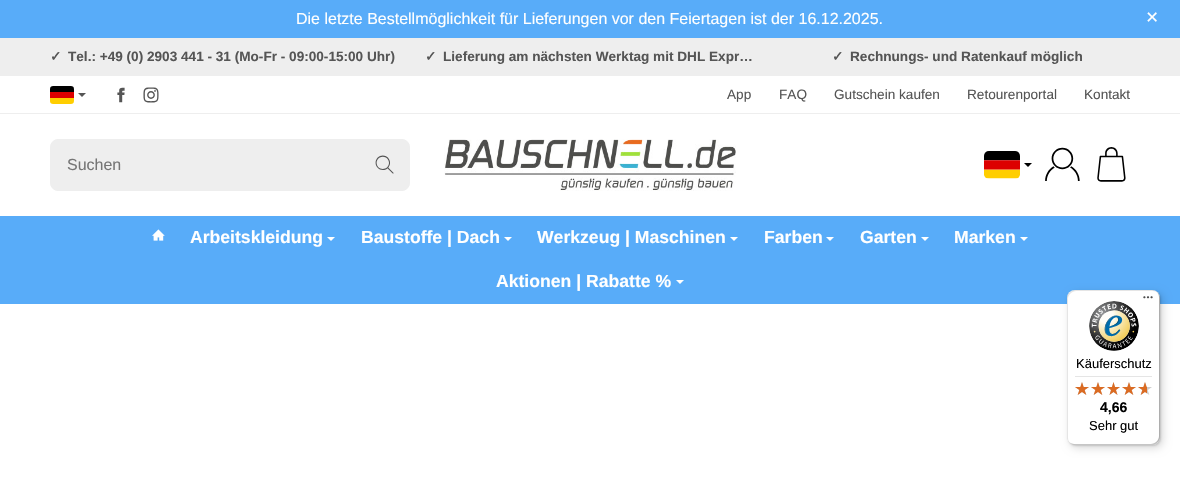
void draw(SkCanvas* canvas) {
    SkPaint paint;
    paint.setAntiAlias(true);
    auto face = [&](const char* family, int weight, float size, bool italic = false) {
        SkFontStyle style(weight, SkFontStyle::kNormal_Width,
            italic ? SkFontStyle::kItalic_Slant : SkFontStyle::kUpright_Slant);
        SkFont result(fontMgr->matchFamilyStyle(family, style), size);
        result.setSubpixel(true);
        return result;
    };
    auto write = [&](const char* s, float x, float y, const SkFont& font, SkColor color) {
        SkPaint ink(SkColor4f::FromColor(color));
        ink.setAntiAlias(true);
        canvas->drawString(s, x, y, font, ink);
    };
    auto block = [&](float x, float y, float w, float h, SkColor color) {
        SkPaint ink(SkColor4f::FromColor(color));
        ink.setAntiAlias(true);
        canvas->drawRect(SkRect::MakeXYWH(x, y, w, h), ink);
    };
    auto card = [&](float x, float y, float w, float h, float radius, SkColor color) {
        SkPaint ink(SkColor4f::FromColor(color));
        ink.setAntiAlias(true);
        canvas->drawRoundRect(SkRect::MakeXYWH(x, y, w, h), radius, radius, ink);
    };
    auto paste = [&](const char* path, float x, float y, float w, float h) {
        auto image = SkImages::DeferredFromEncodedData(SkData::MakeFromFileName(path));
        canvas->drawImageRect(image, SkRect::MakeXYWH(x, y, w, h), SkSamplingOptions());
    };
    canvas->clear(SK_ColorWHITE);
    block(0, 0, 1180, 38, SkColorSetRGB(88, 172, 249));
    auto kFont1 = face("Liberation Sans", 400, 16);
    write("Die letzte Bestellmöglichkeit für Lieferungen vor den Feiertagen ist der 16.12.2025.", 296, 24, kFont1, SK_ColorWHITE);
    auto kFont2 = face("Liberation Sans", 400, 21);
    write("×", 1146, 24, kFont2, SK_ColorWHITE);
    block(0, 38, 1180, 38, SkColorSetRGB(238, 238, 238));
    auto kFont3 = face("DejaVu Sans", 700, 13.6f);
    write("✓", 50, 61, kFont3, SkColorSetRGB(85, 85, 85));
    auto kFont4 = face("Liberation Sans", 700, 13.6f);
    write("Tel.: +49 (0) 2903 441 - 31 (Mo-Fr - 09:00-15:00 Uhr)", 68, 61, kFont4, SkColorSetRGB(85, 85, 85));
    write("✓", 425, 61, kFont3, SkColorSetRGB(85, 85, 85));
    write("Lieferung am nächsten Werktag mit DHL Expr…", 443, 61, kFont4, SkColorSetRGB(85, 85, 85));
    write("✓", 832, 61, kFont3, SkColorSetRGB(85, 85, 85));
    write("Rechnungs- und Ratenkauf möglich", 850, 61, kFont4, SkColorSetRGB(85, 85, 85));
    block(0, 113, 1180, 1, SkColorSetRGB(238, 238, 238));
    paste("pic1.png", 50, 86, 24, 18);
    paint.setColor(SkColorSetRGB(85, 85, 85));
    canvas->drawPath(SkPathBuilder().moveTo(78, 93).lineTo(86, 93).lineTo(82, 97).close().detach(), paint);
    paste("pic2.png", 117, 87, 8, 16);
    paste("pic3.png", 143, 87, 16, 16);
    auto kFont5 = face("Liberation Sans", 400, 13.6f);
    write("App", 727, 99, kFont5, SkColorSetRGB(85, 85, 85));
    write("FAQ", 779, 99, kFont5, SkColorSetRGB(85, 85, 85));
    write("Gutschein kaufen", 834, 99, kFont5, SkColorSetRGB(85, 85, 85));
    write("Retourenportal", 967, 99, kFont5, SkColorSetRGB(85, 85, 85));
    write("Kontakt", 1084, 99, kFont5, SkColorSetRGB(85, 85, 85));
    paint.setColor(SkColorSetRGB(238, 238, 238));
    canvas->drawRoundRect(SkRect::MakeXYWH(50.5f, 139.5f, 359, 51), 7.5f, 7.5f, paint);
    paint.setStyle(SkPaint::kStroke_Style);
    paint.setStrokeWidth(1);
    canvas->drawRoundRect(SkRect::MakeXYWH(50.5f, 139.5f, 359, 51), 7.5f, 7.5f, paint);
    write("Suchen", 67, 170, kFont1, SkColorSetRGB(117, 117, 117));
    paste("pic4.png", 375, 155, 19, 19);
    paste("pic5.png", 444, 139, 292, 52);
    paste("pic6.png", 984, 151, 36, 28);
    paint.setStyle(SkPaint::kFill_Style);
    paint.setColor(SK_ColorBLACK);
    canvas->drawPath(SkPathBuilder().moveTo(1024, 163).lineTo(1032, 163).lineTo(1028, 167).close().detach(), paint);
    paste("pic7.png", 1045, 147, 35, 34);
    paste("pic8.png", 1097, 147, 29, 35);
    block(0, 216, 1180, 88, SkColorSetRGB(88, 172, 249));
    paste("pic9.png", 152, 229, 13, 12);
    auto kFont6 = face("Liberation Sans", 700, 17.6f);
    write("Arbeitskleidung", 190, 243, kFont6, SK_ColorWHITE);
    paint.setColor(SK_ColorWHITE);
    canvas->drawPath(SkPathBuilder().moveTo(327, 237).lineTo(335, 237).lineTo(331, 241).close().detach(), paint);
    write("Baustoffe | Dach", 361, 243, kFont6, SK_ColorWHITE);
    canvas->drawPath(SkPathBuilder().moveTo(504, 237).lineTo(512, 237).lineTo(508, 241).close().detach(), paint);
    write("Werkzeug | Maschinen", 537, 243, kFont6, SK_ColorWHITE);
    canvas->drawPath(SkPathBuilder().moveTo(730, 237).lineTo(738, 237).lineTo(734, 241).close().detach(), paint);
    write("Farben", 764, 243, kFont6, SK_ColorWHITE);
    canvas->drawPath(SkPathBuilder().moveTo(826, 237).lineTo(834, 237).lineTo(830, 241).close().detach(), paint);
    write("Garten", 860, 243, kFont6, SK_ColorWHITE);
    canvas->drawPath(SkPathBuilder().moveTo(921, 237).lineTo(929, 237).lineTo(925, 241).close().detach(), paint);
    write("Marken", 954, 243, kFont6, SK_ColorWHITE);
    canvas->drawPath(SkPathBuilder().moveTo(1020, 237).lineTo(1028, 237).lineTo(1024, 241).close().detach(), paint);
    write("Aktionen | Rabatte %", 496, 287, kFont6, SK_ColorWHITE);
    canvas->drawPath(SkPathBuilder().moveTo(676, 280).lineTo(684, 280).lineTo(680, 284).close().detach(), paint);
    paint.setColor(SkColorSetARGB(38, 0, 0, 0));
    paint.setMaskFilter(SkMaskFilter::MakeBlur(kNormal_SkBlurStyle, 4));
    canvas->drawRoundRect(SkRect::MakeXYWH(1070, 293, 93, 155), 8, 8, paint);
    paint.setMaskFilter(nullptr);
    paint.setMaskFilter(SkMaskFilter::MakeBlur(kNormal_SkBlurStyle, 1));
    canvas->drawRoundRect(SkRect::MakeXYWH(1068, 291, 93, 155), 8, 8, paint);
    paint.setMaskFilter(nullptr);
    card(1067, 290, 93, 155, 8, SK_ColorWHITE);
    paint.setColor(SkColorSetARGB(26, 0, 0, 0));
    canvas->drawPath(SkPathBuilder().moveTo(1076, 291).lineTo(1153, 291).cubicTo(1155, 291, 1157, 292, 1159, 294).cubicTo(1157, 292, 1155, 290, 1152, 290).lineTo(1075, 290).cubicTo(1071, 290, 1067, 294, 1067, 298).lineTo(1067, 437).cubicTo(1067, 440, 1069, 442, 1071, 444).cubicTo(1069, 442, 1068, 440, 1068, 438).lineTo(1068, 299).cubicTo(1068, 295, 1072, 291, 1076, 291).close().detach(), paint);
    paint.setColor(SkColorSetARGB(51, 0, 0, 0));
    canvas->drawPath(SkPathBuilder().moveTo(1068, 441).cubicTo(1070, 443, 1072, 445, 1075, 445).lineTo(1152, 445).cubicTo(1156, 445, 1160, 441, 1160, 437).lineTo(1160, 298).cubicTo(1160, 295, 1158, 293, 1156, 291).cubicTo(1158, 293, 1159, 295, 1159, 297).lineTo(1159, 436).cubicTo(1159, 440, 1155, 444, 1151, 444).lineTo(1074, 444).cubicTo(1072, 444, 1070, 443, 1068, 441).close().detach(), paint);
    paint.setColor(SkColorSetARGB(51, 50, 50, 50));
    canvas->drawPath(SkPathBuilder().moveTo(1069, 442).cubicTo(1070, 444, 1073, 445, 1075, 445).lineTo(1152, 445).cubicTo(1156, 445, 1160, 441, 1160, 437).lineTo(1160, 298).cubicTo(1160, 296, 1159, 293, 1157, 292).cubicTo(1158, 293, 1159, 295, 1159, 297).lineTo(1159, 436).cubicTo(1159, 441, 1156, 444, 1151, 444).lineTo(1074, 444).cubicTo(1072, 444, 1070, 443, 1069, 442).close().detach(), paint);
    paste("pic10.png", 1143, 296, 10, 3);
    paint.setColor(SkColorSetARGB(77, 255, 255, 255));
    canvas->drawPath(SkPathBuilder().moveTo(1069, 442).cubicTo(1070, 444, 1073, 445, 1075, 445).lineTo(1152, 445).cubicTo(1156, 445, 1160, 441, 1160, 437).lineTo(1160, 436).cubicTo(1160, 441, 1156, 444, 1152, 444).lineTo(1074, 444).cubicTo(1072, 444, 1070, 443, 1069, 442).close().detach(), paint);
    paste("pic11.png", 1089, 301, 50, 50);
    auto kFont7 = face("Liberation Sans", 400, 13);
    write("Käuferschutz", 1076, 368, kFont7, SK_ColorBLACK);
    block(1075, 376, 77, 1, SkColorSetRGB(229, 229, 229));
    paste("pic12.png", 1075, 382, 14, 13);
    paste("pic12.png", 1091, 382, 14, 13);
    paste("pic13.png", 1107, 382, 13, 13);
    paste("pic12.png", 1122, 382, 14, 13);
    paste("pic12.png", 1138, 382, 14, 13);
    paste("pic14.png", 1075, 382, 14, 13);
    paste("pic14.png", 1091, 382, 14, 13);
    paste("pic15.png", 1107, 382, 13, 13);
    paste("pic14.png", 1122, 382, 14, 13);
    paste("pic16.png", 1138, 382, 9, 13);
    auto kFont8 = face("Liberation Sans", 700, 14);
    write("4,66", 1100, 412, kFont8, SK_ColorBLACK);
    write("Sehr gut", 1089, 430, kFont7, SK_ColorBLACK);
}
